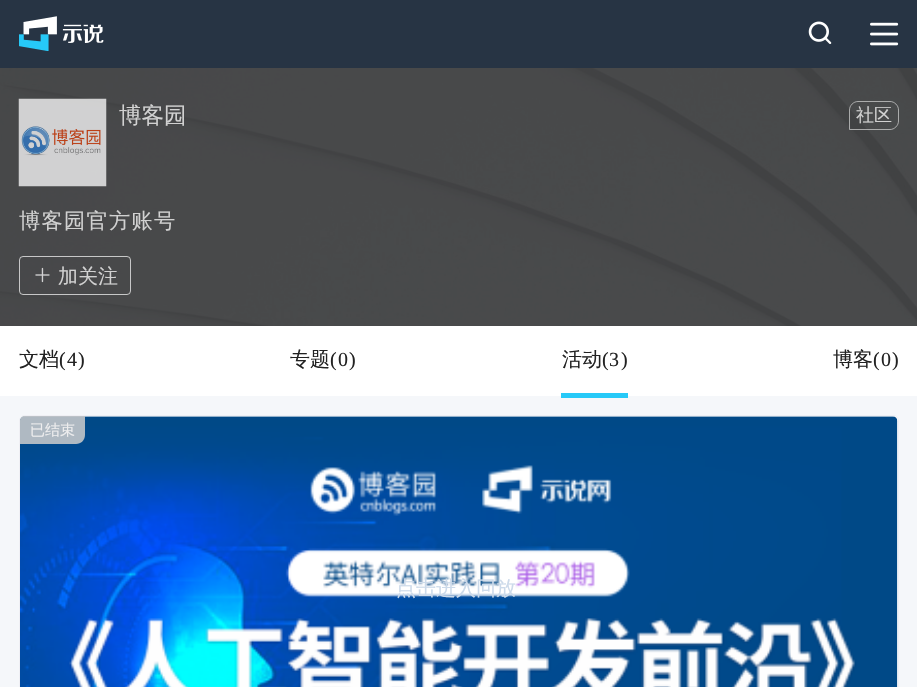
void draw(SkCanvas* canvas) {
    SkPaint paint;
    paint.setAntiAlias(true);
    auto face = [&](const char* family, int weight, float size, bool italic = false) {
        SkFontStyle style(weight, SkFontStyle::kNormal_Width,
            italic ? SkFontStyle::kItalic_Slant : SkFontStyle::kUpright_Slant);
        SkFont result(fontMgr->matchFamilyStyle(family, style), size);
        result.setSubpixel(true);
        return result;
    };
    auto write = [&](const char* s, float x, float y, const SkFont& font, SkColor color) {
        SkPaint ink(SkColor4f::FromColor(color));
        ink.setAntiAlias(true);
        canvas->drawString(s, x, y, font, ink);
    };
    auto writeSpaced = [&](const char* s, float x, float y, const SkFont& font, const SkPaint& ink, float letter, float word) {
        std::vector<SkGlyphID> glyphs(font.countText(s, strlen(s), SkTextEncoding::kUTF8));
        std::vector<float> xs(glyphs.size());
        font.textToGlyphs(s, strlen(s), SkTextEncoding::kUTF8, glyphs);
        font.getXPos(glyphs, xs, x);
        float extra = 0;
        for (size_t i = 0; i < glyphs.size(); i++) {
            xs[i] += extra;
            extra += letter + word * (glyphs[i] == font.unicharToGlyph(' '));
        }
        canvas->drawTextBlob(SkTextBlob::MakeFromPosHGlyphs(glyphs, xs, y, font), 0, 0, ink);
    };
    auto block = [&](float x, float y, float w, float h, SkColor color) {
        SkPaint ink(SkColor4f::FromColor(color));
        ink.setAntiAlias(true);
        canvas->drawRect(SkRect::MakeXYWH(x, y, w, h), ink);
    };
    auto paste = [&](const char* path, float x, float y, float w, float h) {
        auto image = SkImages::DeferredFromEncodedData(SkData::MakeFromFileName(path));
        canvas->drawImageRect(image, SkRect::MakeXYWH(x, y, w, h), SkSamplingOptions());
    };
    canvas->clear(SkColorSetRGB(245, 247, 250));
    block(0, 0, 917, 68, SkColorSetRGB(39, 52, 68));
    paste("pic1.png", 19, 16, 85, 35);
    paste("pic2.png", 808, 21, 24, 23);
    paste("pic3.png", 870, 22, 29, 24);
    paste("pic4.png", 0, 68, 917, 258);
    paste("pic5.png", 18, 98, 89, 89);
    auto kFont1 = face("WenQuanYi Zen Hei", 500, 22.5f);
    write("博客园", 119, 123, kFont1, SkColorSetRGB(209, 209, 209));
    paint.setStyle(SkPaint::kStroke_Style);
    paint.setStrokeWidth(1);
    paint.setColor(SkColorSetARGB(191, 204, 204, 204));
    canvas->drawPath(SkPathBuilder().moveTo(858, 101.5f).lineTo(890, 101.5f).cubicTo(894.5f, 101.5f, 898.5f, 105.5f, 898.5f, 110).lineTo(898.5f, 121).cubicTo(898.5f, 125.5f, 894.5f, 129.5f, 890, 129.5f).lineTo(849.5f, 129.5f).lineTo(849.5f, 110).cubicTo(849.5f, 105.5f, 853.5f, 101.5f, 858, 101.5f).close().detach(), paint);
    auto kFont2 = face("WenQuanYi Zen Hei", 500, 18);
    write("社区", 856, 121, kFont2, SkColorSetRGB(209, 209, 209));
    auto kFont3 = face("WenQuanYi Zen Hei", 500, 21.25f);
    paint.setStyle(SkPaint::kFill_Style);
    paint.setColor(SkColorSetRGB(209, 209, 209));
    writeSpaced("博客园官方账号", 19, 228, kFont3, paint, 1.25f, 0);
    paint.setStyle(SkPaint::kStroke_Style);
    paint.setColor(SkColorSetARGB(191, 242, 242, 242));
    canvas->drawRoundRect(SkRect::MakeXYWH(19.5f, 256.5f, 111, 38), 3.5f, 3.5f, paint);
    paste("pic6.png", 35, 267, 15, 16);
    auto kFont4 = face("WenQuanYi Zen Hei", 500, 20);
    write("加关注", 58, 283, kFont4, SkColorSetRGB(209, 209, 209));
    block(0, 326, 917, 70, SK_ColorWHITE);
    write("文档", 19, 366, kFont4, SkColorSetRGB(34, 34, 34));
    auto kFont5 = face("Liberation Serif", 400, 20);
    write("(", 59, 366, kFont5, SkColorSetRGB(34, 34, 34));
    write("4", 67, 366, kFont5, SkColorSetRGB(34, 34, 34));
    write(")", 78, 366, kFont5, SkColorSetRGB(34, 34, 34));
    write("专题", 290, 366, kFont4, SkColorSetRGB(34, 34, 34));
    write("(", 330, 366, kFont5, SkColorSetRGB(34, 34, 34));
    write("0", 338, 366, kFont5, SkColorSetRGB(34, 34, 34));
    write(")", 349, 366, kFont5, SkColorSetRGB(34, 34, 34));
    block(561, 393, 67, 5, SkColorSetRGB(38, 201, 248));
    write("活动", 562, 366, kFont4, SkColorSetRGB(34, 34, 34));
    write("(", 602, 366, kFont5, SkColorSetRGB(34, 34, 34));
    write("3", 609, 366, kFont5, SkColorSetRGB(34, 34, 34));
    write(")", 621, 366, kFont5, SkColorSetRGB(34, 34, 34));
    write("博客", 833, 366, kFont4, SkColorSetRGB(34, 34, 34));
    write("(", 873, 366, kFont5, SkColorSetRGB(34, 34, 34));
    write("0", 881, 366, kFont5, SkColorSetRGB(34, 34, 34));
    write(")", 892, 366, kFont5, SkColorSetRGB(34, 34, 34));
    paint.setColor(SkColorSetRGB(239, 239, 244));
    canvas->drawRoundRect(SkRect::MakeXYWH(19.5f, 415.5f, 879, 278), 5.5f, 5.5f, paint);
    paint.setStyle(SkPaint::kFill_Style);
    paint.setColor(SK_ColorWHITE);
    canvas->drawPath(SkPathBuilder().moveTo(25, 416).lineTo(893, 416).cubicTo(896, 416, 898, 418, 898, 421).lineTo(898, 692).lineTo(20, 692).lineTo(20, 421).cubicTo(20, 418, 22, 416, 25, 416).close().detach(), paint);
    paste("pic7.png", 20, 416, 878, 271);
    paint.setColor(SkColorSetARGB(235, 190, 194, 199));
    canvas->drawPath(SkPathBuilder().moveTo(25, 416).lineTo(85, 416).lineTo(85, 435).cubicTo(85, 440, 81, 444, 76, 444).lineTo(20, 444).lineTo(20, 421).cubicTo(20, 418, 22, 416, 25, 416).close().detach(), paint);
    auto kFont6 = face("WenQuanYi Zen Hei", 500, 15);
    write("已结束", 30, 435, kFont6, SkColorSetRGB(237, 237, 238));
    write("点击进入回放", 396, 595, kFont4, SkColorSetRGB(204, 218, 234));
}
